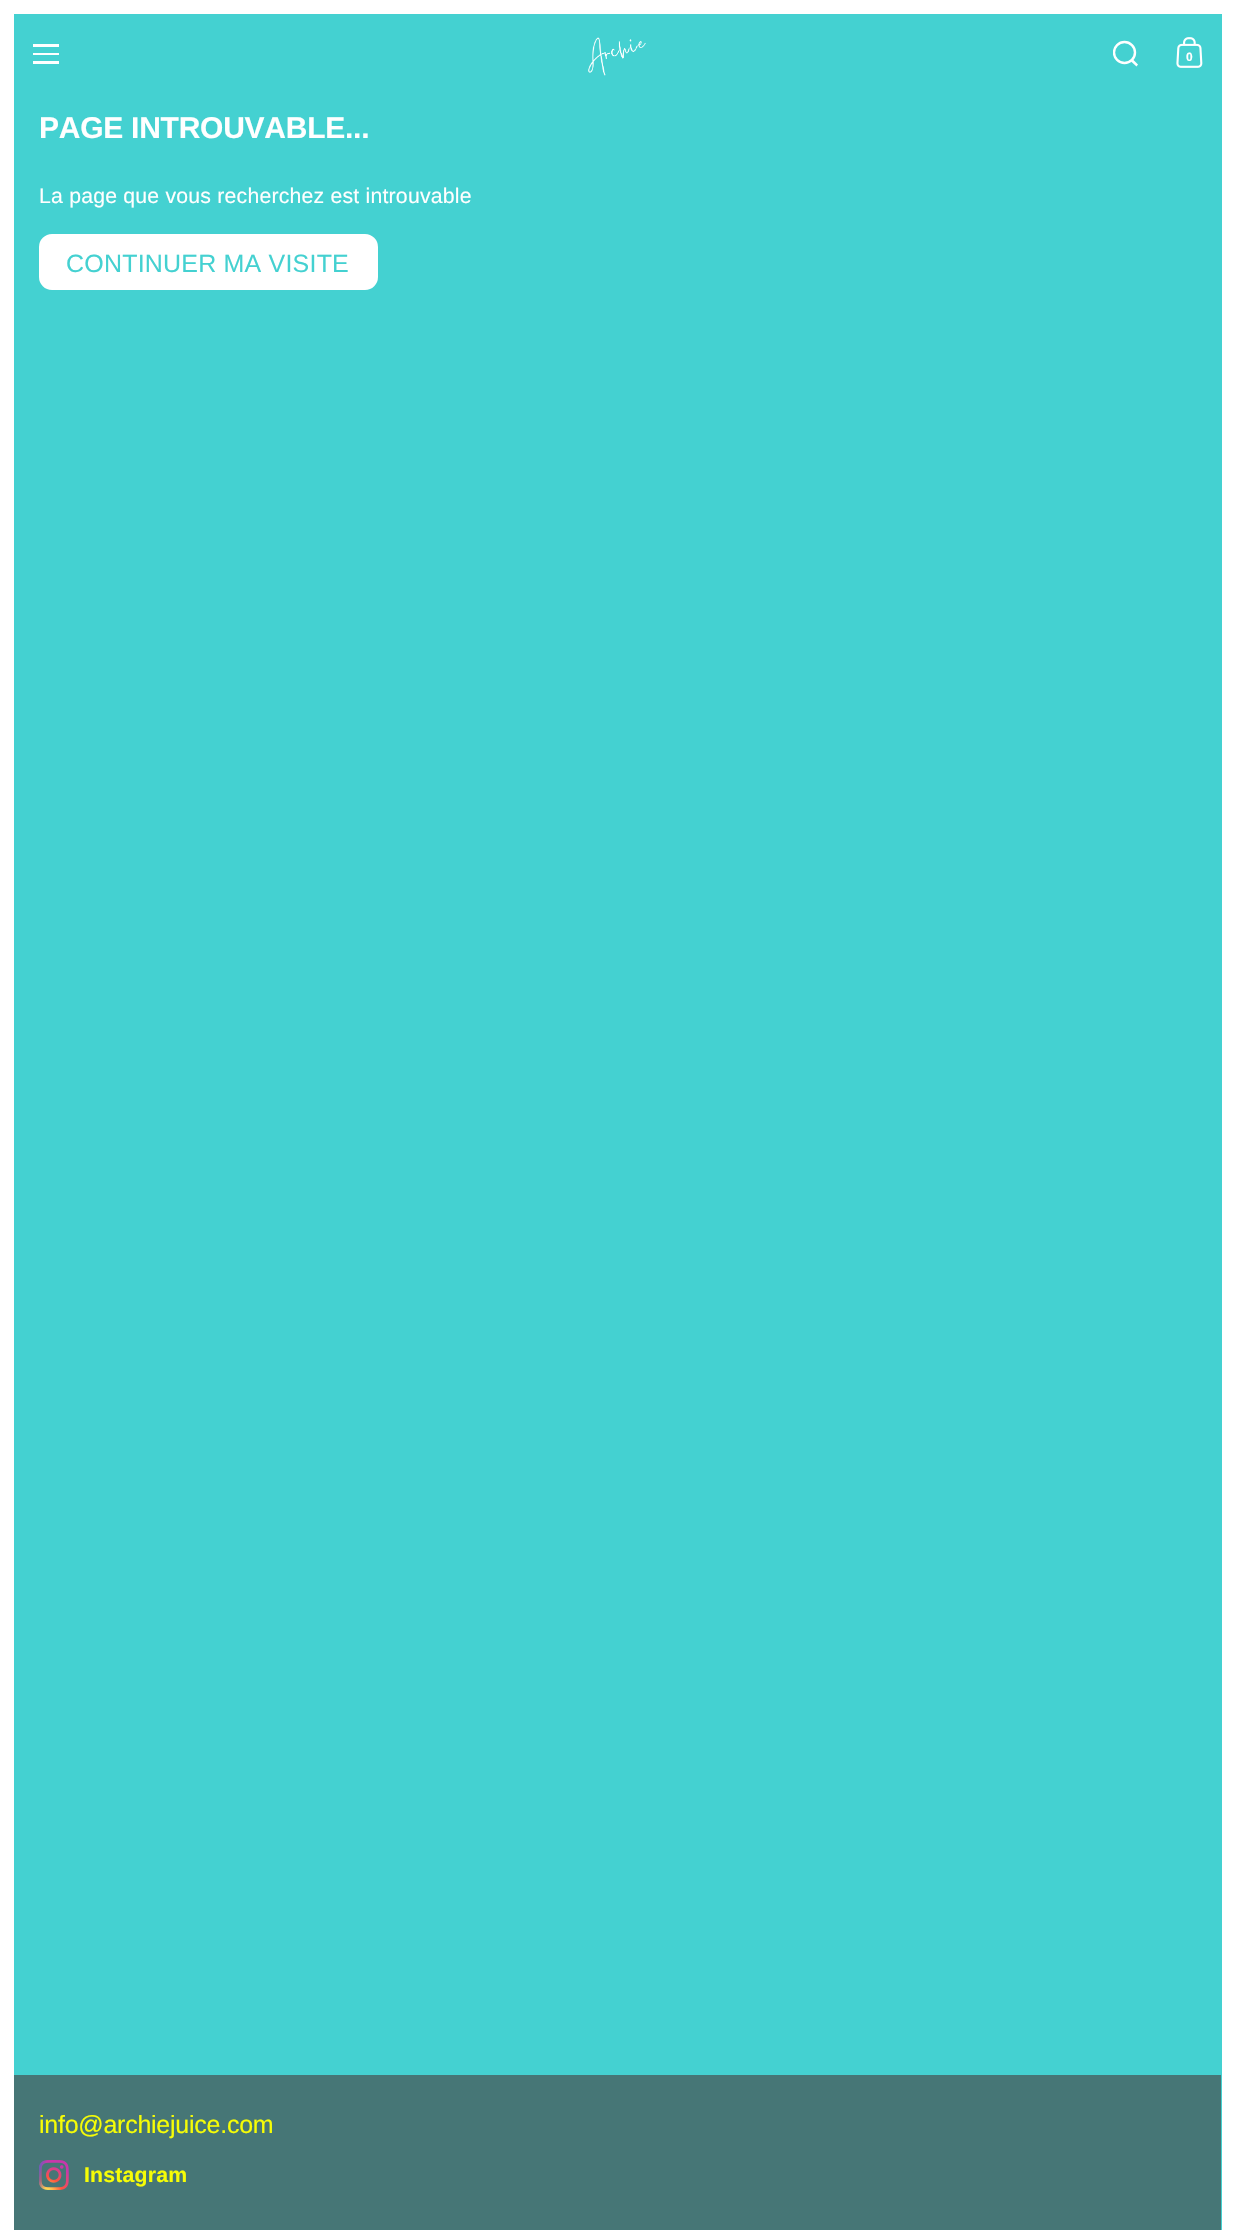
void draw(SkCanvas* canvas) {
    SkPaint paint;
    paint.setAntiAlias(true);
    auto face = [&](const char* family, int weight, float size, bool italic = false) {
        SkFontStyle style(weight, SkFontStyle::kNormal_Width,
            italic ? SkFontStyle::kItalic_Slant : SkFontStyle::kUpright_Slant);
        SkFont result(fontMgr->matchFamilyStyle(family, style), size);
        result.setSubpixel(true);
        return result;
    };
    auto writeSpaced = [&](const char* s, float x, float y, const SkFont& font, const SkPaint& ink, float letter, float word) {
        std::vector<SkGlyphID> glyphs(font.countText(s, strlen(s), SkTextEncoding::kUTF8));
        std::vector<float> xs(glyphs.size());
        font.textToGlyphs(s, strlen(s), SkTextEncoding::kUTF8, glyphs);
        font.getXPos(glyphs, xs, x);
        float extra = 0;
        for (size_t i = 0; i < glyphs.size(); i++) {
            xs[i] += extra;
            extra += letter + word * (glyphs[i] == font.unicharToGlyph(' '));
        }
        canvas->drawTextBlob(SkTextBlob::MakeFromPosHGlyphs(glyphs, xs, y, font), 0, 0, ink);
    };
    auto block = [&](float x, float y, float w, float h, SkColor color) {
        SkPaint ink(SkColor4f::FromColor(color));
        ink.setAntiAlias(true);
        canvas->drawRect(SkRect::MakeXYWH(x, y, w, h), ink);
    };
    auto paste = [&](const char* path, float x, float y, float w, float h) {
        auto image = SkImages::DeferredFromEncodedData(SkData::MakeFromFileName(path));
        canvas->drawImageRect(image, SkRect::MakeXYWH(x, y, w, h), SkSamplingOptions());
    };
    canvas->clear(SK_ColorWHITE);
    block(14, 14, 1208, 2216, SkColorSetRGB(68, 209, 209));
    block(33, 44, 26, 3, SK_ColorWHITE);
    block(33, 53, 26, 2, SK_ColorWHITE);
    block(33, 61, 26, 3, SK_ColorWHITE);
    paste("pic1.png", 588, 37, 58, 39);
    canvas->save();
    canvas->clipRect(SkRect::MakeXYWH(1113, 38, 26, 32));
    paint.setStyle(SkPaint::kStroke_Style);
    paint.setStrokeWidth(2.4f);
    paint.setColor(SK_ColorWHITE);
    canvas->drawCircle(1124.5f, 52.5f, 10.5f, paint);
    canvas->restore();
    paint.setStyle(SkPaint::kFill_Style);
    canvas->drawPath(SkPathBuilder().moveTo(1130.5f, 61).lineTo(1132.5f, 59).lineTo(1138, 64.5f).lineTo(1136.5f, 66.5f).close().detach(), paint);
    paste("pic2.png", 1176, 37, 27, 31);
    auto kFont1 = face("Liberation Sans", 700, 12);
    writeSpaced("0", 1186, 61, kFont1, paint, 0.2f, 0);
    auto kFont2 = face("Liberation Sans", 700, 30);
    writeSpaced("PAGE INTROUVABLE...", 39, 138, kFont2, paint, -0.25f, 0);
    auto kFont3 = face("Liberation Sans", 400, 21.25f);
    writeSpaced("La page que vous recherchez est introuvable", 39, 203, kFont3, paint, 0.2f, 0);
    canvas->drawRoundRect(SkRect::MakeXYWH(40.5f, 235.5f, 336, 53), 11.5f, 11.5f, paint);
    paint.setStyle(SkPaint::kStroke_Style);
    paint.setStrokeWidth(3);
    canvas->drawRoundRect(SkRect::MakeXYWH(40.5f, 235.5f, 336, 53), 11.5f, 11.5f, paint);
    auto kFont4 = face("Liberation Sans", 400, 25);
    paint.setStyle(SkPaint::kFill_Style);
    paint.setColor(SkColorSetRGB(68, 209, 209));
    writeSpaced("CONTINUER MA VISITE", 66, 272, kFont4, paint, 0.2f, 0);
    block(14, 2075, 1207, 155, SkColorSetRGB(70, 118, 118));
    paint.setColor(SkColorSetRGB(246, 253, 6));
    writeSpaced("info@archiejuice.com", 39, 2133, kFont4, paint, -0.25f, 0);
    paste("pic3.png", 39, 2160, 30, 30);
    auto kFont5 = face("Liberation Sans", 700, 21.25f);
    writeSpaced("Instagram", 84, 2182, kFont5, paint, 0.2f, 0);
}
